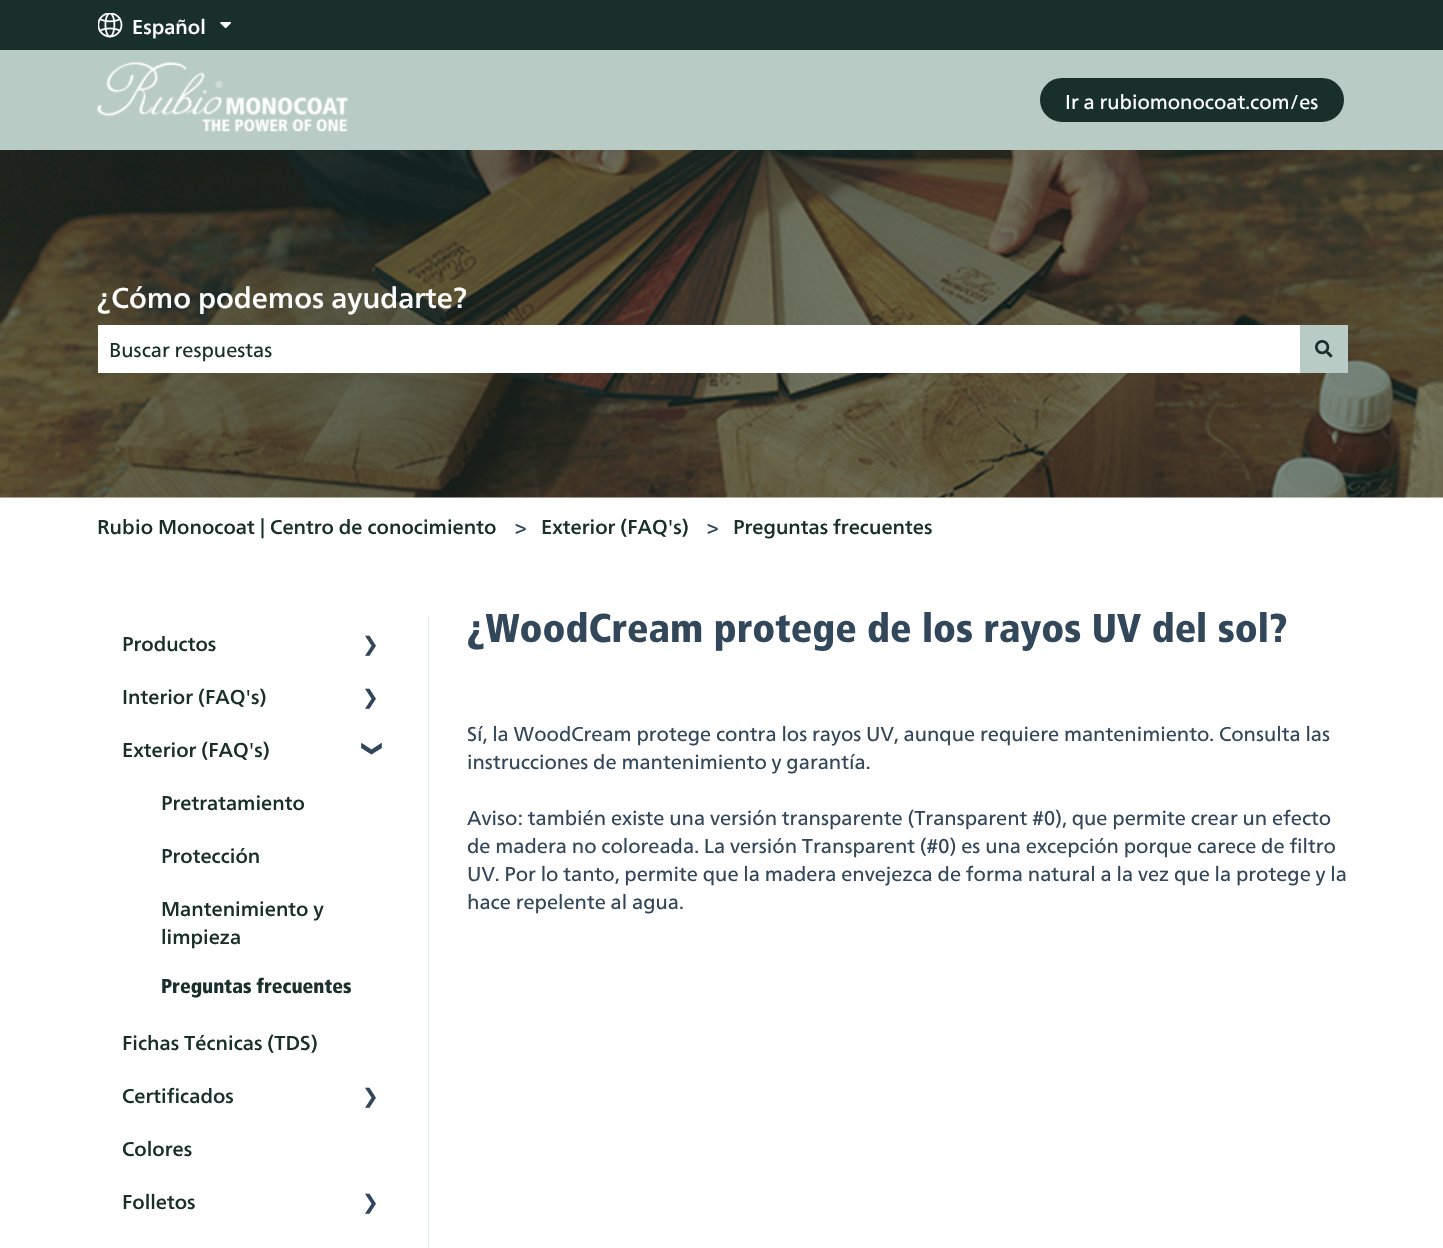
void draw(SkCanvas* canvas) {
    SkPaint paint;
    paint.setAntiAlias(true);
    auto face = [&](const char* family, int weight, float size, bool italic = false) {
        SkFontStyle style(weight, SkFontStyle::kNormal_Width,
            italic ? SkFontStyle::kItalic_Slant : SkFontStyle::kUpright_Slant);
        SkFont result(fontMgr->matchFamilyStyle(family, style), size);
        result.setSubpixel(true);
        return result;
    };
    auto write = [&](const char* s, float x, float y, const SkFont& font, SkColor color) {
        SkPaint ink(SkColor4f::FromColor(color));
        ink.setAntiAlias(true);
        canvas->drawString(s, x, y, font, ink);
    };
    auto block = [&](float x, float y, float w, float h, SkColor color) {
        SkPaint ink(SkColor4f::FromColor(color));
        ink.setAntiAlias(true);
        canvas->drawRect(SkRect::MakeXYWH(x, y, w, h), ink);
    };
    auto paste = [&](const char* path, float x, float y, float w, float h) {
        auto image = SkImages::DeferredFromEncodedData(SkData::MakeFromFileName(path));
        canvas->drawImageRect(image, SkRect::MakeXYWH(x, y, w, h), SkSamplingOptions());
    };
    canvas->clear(SK_ColorWHITE);
    block(0, 0, 1443, 50, SkColorSetRGB(24, 48, 41));
    paste("pic1.png", 98, 13, 25, 25);
    auto kFont1 = face("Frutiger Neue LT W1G", 500, 20);
    write("Español", 132, 34, kFont1, SK_ColorWHITE);
    paste("pic2.png", 220, 22, 11, 7);
    block(0, 50, 1443, 100, SkColorSetRGB(185, 203, 197));
    paste("pic3.png", 97, 62, 251, 70);
    paint.setColor(SkColorSetRGB(24, 48, 41));
    canvas->drawRoundRect(SkRect::MakeXYWH(1038, 76, 308, 48), 24, 24, paint);
    paint.setStyle(SkPaint::kStroke_Style);
    paint.setStrokeWidth(4);
    paint.setColor(SkColorSetRGB(185, 203, 197));
    canvas->drawRoundRect(SkRect::MakeXYWH(1038, 76, 308, 48), 24, 24, paint);
    auto kFont2 = face("Frutiger Neue LT W1G", 400, 20);
    write("Ir a rubiomonocoat.com/es", 1065, 109, kFont2, SK_ColorWHITE);
    paste("pic4.png", 0, 150, 1443, 348);
    auto kFont3 = face("Frutiger Neue LT W1G", 500, 28.75f);
    write("¿Cómo podemos ayudarte?", 97, 308, kFont3, SK_ColorWHITE);
    block(98, 325, 1202, 48, SK_ColorWHITE);
    write("Buscar respuestas", 109, 357, kFont2, SkColorSetRGB(24, 48, 41));
    block(1300, 325, 48, 48, SkColorSetRGB(185, 203, 197));
    paste("pic5.png", 1315, 340, 18, 18);
    write("Rubio Monocoat | Centro de conocimiento", 97, 534, kFont1, SkColorSetRGB(24, 48, 41));
    write(">", 515, 534, kFont2, SkColorSetRGB(51, 71, 91));
    write("Exterior (FAQ's)", 541, 534, kFont1, SkColorSetRGB(24, 48, 41));
    write(">", 707, 534, kFont2, SkColorSetRGB(51, 71, 91));
    write("Preguntas frecuentes", 733, 534, kFont1, SkColorSetRGB(24, 48, 41));
    block(428, 616, 1, 632, SkColorSetRGB(226, 235, 244));
    write("Productos", 122, 651, kFont1, SkColorSetRGB(24, 48, 41));
    auto kFont4 = face("DejaVu Sans", 400, 20);
    write("❯", 362, 651, kFont4, SkColorSetRGB(51, 71, 91));
    write("Interior (FAQ's)", 122, 704, kFont1, SkColorSetRGB(24, 48, 41));
    write("❯", 362, 704, kFont4, SkColorSetRGB(51, 71, 91));
    write("Exterior (FAQ's)", 122, 757, kFont1, SkColorSetRGB(24, 48, 41));
    auto kFont5 = face("DejaVu Sans", 700, 20);
    canvas->save();
    canvas->rotate(90, 366, 740);
    write("❯", 366, 740, kFont5, SkColorSetRGB(51, 71, 91));
    canvas->restore();
    write("Pretratamiento", 161, 810, kFont1, SkColorSetRGB(24, 48, 41));
    write("Protección", 161, 863, kFont1, SkColorSetRGB(24, 48, 41));
    write("Mantenimiento y", 161, 916, kFont1, SkColorSetRGB(24, 48, 41));
    write("limpieza", 161, 944, kFont1, SkColorSetRGB(24, 48, 41));
    auto kFont6 = face("Frutiger", 900, 20);
    write("Preguntas frecuentes", 161, 993, kFont6, SkColorSetRGB(24, 48, 41));
    write("Fichas Técnicas (TDS)", 122, 1050, kFont1, SkColorSetRGB(24, 48, 41));
    write("Certificados", 122, 1103, kFont1, SkColorSetRGB(24, 48, 41));
    write("❯", 362, 1103, kFont4, SkColorSetRGB(51, 71, 91));
    write("Colores", 122, 1156, kFont1, SkColorSetRGB(24, 48, 41));
    write("Folletos", 122, 1209, kFont1, SkColorSetRGB(24, 48, 41));
    write("❯", 362, 1209, kFont4, SkColorSetRGB(51, 71, 91));
    auto kFont7 = face("Frutiger", 900, 40);
    write("¿WoodCream protege de los rayos UV del sol?", 467, 642, kFont7, SkColorSetRGB(51, 71, 91));
    write("Sí, la WoodCream protege contra los rayos UV, aunque requiere mantenimiento. Consulta las", 467, 741, kFont2, SkColorSetRGB(51, 71, 91));
    write("instrucciones de mantenimiento y garantía.", 467, 769, kFont2, SkColorSetRGB(51, 71, 91));
    write("Aviso: también existe una versión transparente (Transparent #0), que permite crear un efecto", 467, 825, kFont2, SkColorSetRGB(51, 71, 91));
    write("de madera no coloreada. La versión Transparent (#0) es una excepción porque carece de filtro", 467, 853, kFont2, SkColorSetRGB(51, 71, 91));
    write("UV. Por lo tanto, permite que la madera envejezca de forma natural a la vez que la protege y la", 467, 881, kFont2, SkColorSetRGB(51, 71, 91));
    write("hace repelente al agua.", 467, 909, kFont2, SkColorSetRGB(51, 71, 91));
}
